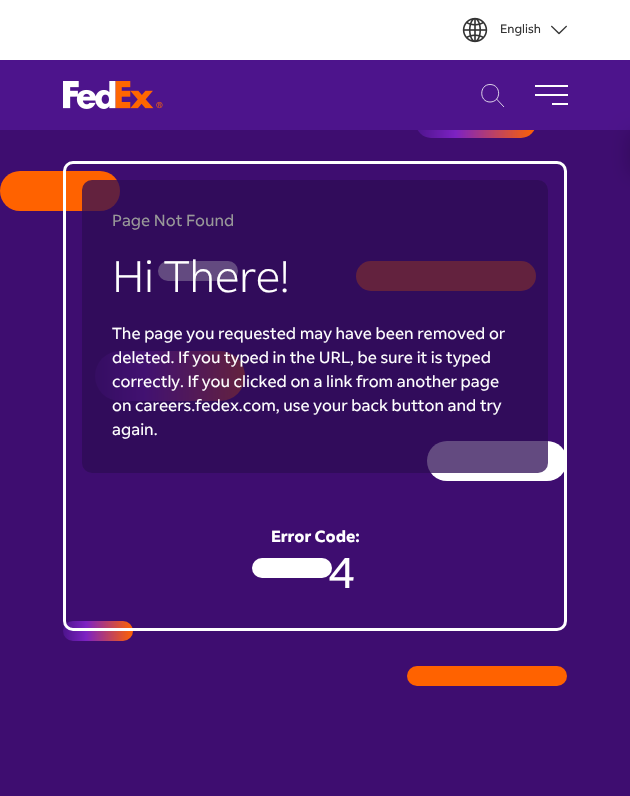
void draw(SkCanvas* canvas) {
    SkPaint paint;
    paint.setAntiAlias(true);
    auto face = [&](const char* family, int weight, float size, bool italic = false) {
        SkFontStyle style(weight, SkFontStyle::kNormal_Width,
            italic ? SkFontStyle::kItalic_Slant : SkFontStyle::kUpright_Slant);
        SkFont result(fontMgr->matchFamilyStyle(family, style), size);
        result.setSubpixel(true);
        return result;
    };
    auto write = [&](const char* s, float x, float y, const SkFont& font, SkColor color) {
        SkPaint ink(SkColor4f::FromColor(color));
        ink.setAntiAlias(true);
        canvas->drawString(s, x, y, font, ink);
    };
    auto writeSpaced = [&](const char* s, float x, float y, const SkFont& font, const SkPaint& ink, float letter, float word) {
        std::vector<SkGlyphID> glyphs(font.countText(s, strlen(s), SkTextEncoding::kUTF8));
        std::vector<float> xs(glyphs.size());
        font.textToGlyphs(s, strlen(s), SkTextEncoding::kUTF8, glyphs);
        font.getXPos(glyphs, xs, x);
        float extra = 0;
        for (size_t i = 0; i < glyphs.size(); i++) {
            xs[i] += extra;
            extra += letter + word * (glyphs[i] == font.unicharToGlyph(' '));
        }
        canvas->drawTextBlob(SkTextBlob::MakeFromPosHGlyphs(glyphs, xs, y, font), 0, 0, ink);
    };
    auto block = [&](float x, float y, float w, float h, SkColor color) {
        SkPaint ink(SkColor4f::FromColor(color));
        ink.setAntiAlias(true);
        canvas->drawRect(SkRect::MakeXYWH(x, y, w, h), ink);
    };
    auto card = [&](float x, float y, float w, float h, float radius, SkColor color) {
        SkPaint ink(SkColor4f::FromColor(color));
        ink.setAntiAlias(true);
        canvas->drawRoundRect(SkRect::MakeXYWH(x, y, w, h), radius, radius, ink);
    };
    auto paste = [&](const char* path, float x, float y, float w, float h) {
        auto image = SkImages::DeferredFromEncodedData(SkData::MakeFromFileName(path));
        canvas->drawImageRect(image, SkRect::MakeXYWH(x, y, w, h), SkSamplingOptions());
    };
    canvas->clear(SkColorSetRGB(62, 13, 112));
    block(0, 0, 630, 60, SK_ColorWHITE);
    paste("pic1.png", 462, 17, 26, 26);
    auto kFont1 = face("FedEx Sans", 400, 12);
    write("English", 500, 33, kFont1, SkColorSetRGB(51, 51, 51));
    paste("pic2.png", 551, 25, 16, 10);
    {
        const SkColor colors[] = {SkColorSetRGB(77, 20, 140), SkColorSetRGB(125, 34, 195), SkColorSetRGB(255, 98, 0)};
        const float stops[] = {0, 0.33f, 1};
        const SkPoint ends[] = {{416, 123}, {536, 123}};
        paint.setShader(SkGradientShader::MakeLinear(ends, colors, stops, 3, SkTileMode::kClamp));
        paint.setAlpha(255);
    }
    canvas->drawRoundRect(SkRect::MakeXYWH(416, 108, 120, 30), 15, 15, paint);
    block(0, 60, 630, 70, SkColorSetRGB(77, 20, 140));
    paste("pic3.png", 63, 81, 100, 28);
    paint.setStyle(SkPaint::kStroke_Style);
    paint.setStrokeWidth(0.8f);
    paint.setShader(nullptr);
    paint.setColor(SK_ColorWHITE);
    canvas->drawPath(SkPathBuilder().moveTo(490, 102).cubicTo(501.5f, 102, 501.5f, 84.5f, 490, 84.5f).cubicTo(479, 84.5f, 479, 102, 490, 102).close().moveTo(496.5f, 99).lineTo(504, 107).detach(), paint);
    block(535, 85, 33, 2, SK_ColorWHITE);
    block(535, 94, 33, 2, SK_ColorWHITE);
    block(552, 103, 16, 2, SK_ColorWHITE);
    paint.setStyle(SkPaint::kFill_Style);
    paint.setColor(SkColorSetARGB(51, 0, 0, 0));
    paint.setMaskFilter(SkMaskFilter::MakeBlur(kNormal_SkBlurStyle, 10));
    canvas->drawRect(SkRect::MakeXYWH(630, 133, 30, 41), paint);
    paint.setMaskFilter(nullptr);
    {
        const SkColor colors[] = {SkColorSetRGB(77, 20, 140), SkColorSetRGB(125, 34, 195), SkColorSetRGB(255, 98, 0)};
        const float stops[] = {0, 0.33f, 1};
        const SkPoint ends[] = {{95, 376}, {245, 376}};
        paint.setShader(SkGradientShader::MakeLinear(ends, colors, stops, 3, SkTileMode::kClamp));
        paint.setAlpha(255);
    }
    canvas->drawRoundRect(SkRect::MakeXYWH(95, 351, 150, 50), 25, 25, paint);
    {
        const SkColor colors[] = {SkColorSetRGB(77, 20, 140), SkColorSetRGB(125, 34, 195), SkColorSetRGB(255, 98, 0)};
        const float stops[] = {0, 0.33f, 1};
        const SkPoint ends[] = {{63, 631}, {133, 631}};
        paint.setShader(SkGradientShader::MakeLinear(ends, colors, stops, 3, SkTileMode::kClamp));
        paint.setAlpha(255);
    }
    canvas->drawRoundRect(SkRect::MakeXYWH(63, 621, 70, 20), 10, 10, paint);
    card(0, 171, 120, 40, 20, SkColorSetRGB(255, 98, 0));
    card(356, 261, 180, 30, 15, SkColorSetRGB(255, 98, 0));
    card(407, 666, 160, 20, 10, SkColorSetRGB(255, 98, 0));
    card(158, 261, 80, 20, 10, SK_ColorWHITE);
    card(427, 441, 140, 40, 20, SK_ColorWHITE);
    card(252, 558, 80, 20, 10, SK_ColorWHITE);
    paint.setStyle(SkPaint::kStroke_Style);
    paint.setStrokeWidth(3);
    paint.setShader(nullptr);
    paint.setColor(SK_ColorWHITE);
    canvas->drawRoundRect(SkRect::MakeXYWH(64.5f, 162.5f, 501, 467), 8.5f, 8.5f, paint);
    card(82, 180, 466, 293, 10, SkColorSetARGB(189, 45, 11, 83));
    auto kFont2 = face("FedEx Sans", 400, 16);
    write("Page Not Found", 112, 226, kFont2, SkColorSetRGB(153, 153, 153));
    auto kFont3 = face("FedEx Sans", 300, 44);
    paint.setStyle(SkPaint::kFill_Style);
    writeSpaced("Hi There!", 112, 292, kFont3, paint, -0.5f, 0);
    write("The page you requested may have been removed or", 112, 339, kFont2, SK_ColorWHITE);
    write("deleted. If you typed in the URL, be sure it is typed", 112, 363, kFont2, SK_ColorWHITE);
    write("correctly. If you clicked on a link from another page", 112, 387, kFont2, SK_ColorWHITE);
    write("on careers.fedex.com, use your back button and try", 112, 411, kFont2, SK_ColorWHITE);
    write("again.", 112, 435, kFont2, SK_ColorWHITE);
    auto kFont4 = face("FedEx Sans", 700, 16);
    write("Error Code:", 271, 542, kFont4, SK_ColorWHITE);
    auto kFont5 = face("FedEx Sans", 400, 44);
    write("4", 328, 588, kFont5, SK_ColorWHITE);
}
